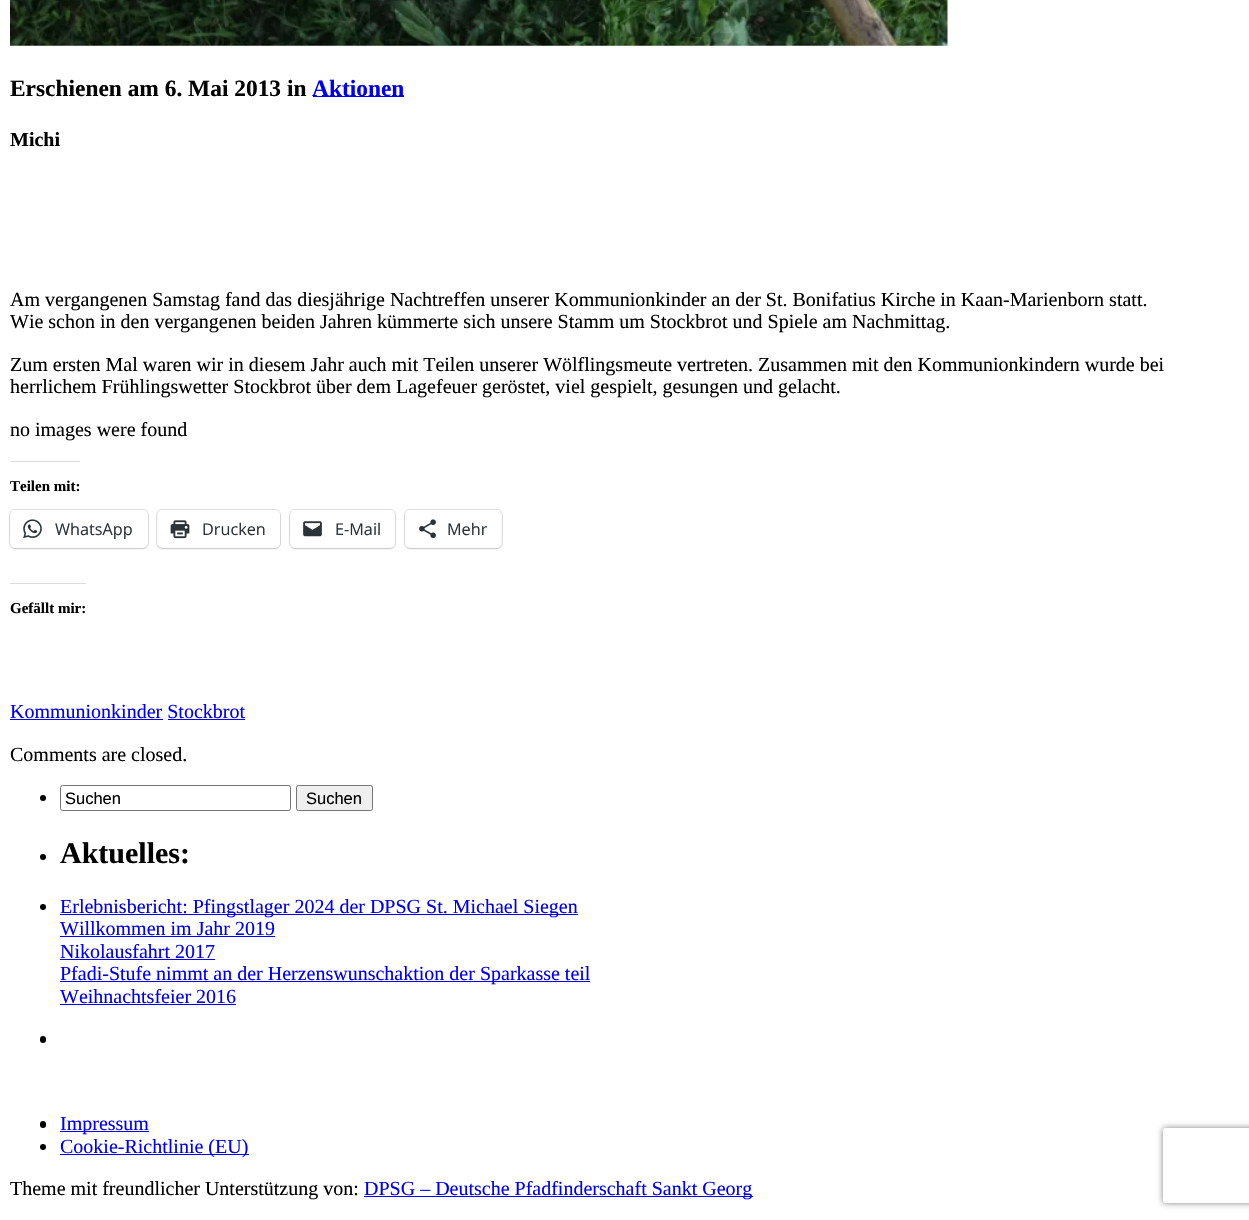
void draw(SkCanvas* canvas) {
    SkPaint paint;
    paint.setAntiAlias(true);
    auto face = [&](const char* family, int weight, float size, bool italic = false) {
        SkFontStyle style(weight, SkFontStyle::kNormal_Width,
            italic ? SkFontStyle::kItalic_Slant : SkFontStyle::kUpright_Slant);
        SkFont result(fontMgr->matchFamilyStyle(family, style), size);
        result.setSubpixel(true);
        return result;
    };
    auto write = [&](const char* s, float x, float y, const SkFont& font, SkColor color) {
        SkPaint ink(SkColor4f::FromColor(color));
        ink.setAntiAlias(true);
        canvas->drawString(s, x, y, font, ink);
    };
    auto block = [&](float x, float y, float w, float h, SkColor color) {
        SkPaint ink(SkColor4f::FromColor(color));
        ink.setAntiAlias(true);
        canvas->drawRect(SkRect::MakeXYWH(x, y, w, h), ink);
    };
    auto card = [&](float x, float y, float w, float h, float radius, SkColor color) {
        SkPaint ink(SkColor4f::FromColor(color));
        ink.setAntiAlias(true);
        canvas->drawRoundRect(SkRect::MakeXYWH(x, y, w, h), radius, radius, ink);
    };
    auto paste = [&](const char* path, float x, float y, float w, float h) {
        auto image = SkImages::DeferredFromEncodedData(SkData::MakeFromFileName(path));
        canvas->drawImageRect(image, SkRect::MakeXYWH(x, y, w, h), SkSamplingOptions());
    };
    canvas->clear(SK_ColorWHITE);
    paste("pic1.png", 10, 0, 938, 46);
    auto kFont1 = face("Liberation Serif", 700, 23.4f);
    write("Erschienen am 6. Mai 2013 in", 10, 96, kFont1, SK_ColorBLACK);
    block(313, 96, 91, 1, SkColorSetRGB(0, 0, 238));
    write("Aktionen", 312, 96, kFont1, SkColorSetRGB(0, 0, 238));
    auto kFont2 = face("Liberation Serif", 700, 20);
    write("Michi", 10, 146, kFont2, SK_ColorBLACK);
    auto kFont3 = face("Liberation Serif", 400, 20);
    write("Am vergangenen Samstag fand das diesjährige Nachtreffen unserer Kommunionkinder an der St. Bonifatius Kirche in Kaan-Marienborn statt.", 10, 306, kFont3, SK_ColorBLACK);
    write("Wie schon in den vergangenen beiden Jahren kümmerte sich unsere Stamm um Stockbrot und Spiele am Nachmittag.", 10, 328, kFont3, SK_ColorBLACK);
    write("Zum ersten Mal waren wir in diesem Jahr auch mit Teilen unserer Wölflingsmeute vertreten. Zusammen mit den Kommunionkindern wurde bei", 10, 371, kFont3, SK_ColorBLACK);
    write("herrlichem Frühlingswetter Stockbrot über dem Lagefeuer geröstet, viel gespielt, gesungen und gelacht.", 10, 393, kFont3, SK_ColorBLACK);
    write("no images were found", 10, 436, kFont3, SK_ColorBLACK);
    block(10, 461, 70, 1, SkColorSetRGB(220, 220, 222));
    auto kFont4 = face("Liberation Serif", 700, 15);
    write("Teilen mit:", 10, 491, kFont4, SK_ColorBLACK);
    paint.setStyle(SkPaint::kStroke_Style);
    paint.setStrokeWidth(1);
    paint.setColor(SkColorSetRGB(224, 224, 224));
    canvas->drawRoundRect(SkRect::MakeXYWH(9.5f, 509.5f, 139, 39), 5.5f, 5.5f, paint);
    paint.setStyle(SkPaint::kFill_Style);
    paint.setColor(SkColorSetARGB(31, 0, 0, 0));
    paint.setMaskFilter(SkMaskFilter::MakeBlur(kNormal_SkBlurStyle, 1));
    canvas->drawRoundRect(SkRect::MakeXYWH(10, 511, 138, 38), 5, 5, paint);
    paint.setMaskFilter(nullptr);
    card(10, 510, 138, 38, 5, SK_ColorWHITE);
    paste("pic2.png", 23, 519, 19, 19);
    auto kFont5 = face("Open Sans", 400, 16.25f);
    write("WhatsApp", 55, 535, kFont5, SkColorSetRGB(44, 51, 56));
    paint.setStyle(SkPaint::kStroke_Style);
    paint.setColor(SkColorSetRGB(224, 224, 224));
    canvas->drawRoundRect(SkRect::MakeXYWH(156.5f, 509.5f, 124, 39), 5.5f, 5.5f, paint);
    paint.setStyle(SkPaint::kFill_Style);
    paint.setColor(SkColorSetARGB(31, 0, 0, 0));
    paint.setMaskFilter(SkMaskFilter::MakeBlur(kNormal_SkBlurStyle, 1));
    canvas->drawRoundRect(SkRect::MakeXYWH(158, 511, 122, 38), 5, 5, paint);
    paint.setMaskFilter(nullptr);
    card(158, 510, 122, 38, 5, SK_ColorWHITE);
    paste("pic3.png", 170, 520, 20, 19);
    write("Drucken", 202, 535, kFont5, SkColorSetRGB(44, 51, 56));
    paint.setStyle(SkPaint::kStroke_Style);
    paint.setColor(SkColorSetRGB(224, 224, 224));
    canvas->drawRoundRect(SkRect::MakeXYWH(289.5f, 509.5f, 106, 39), 5.5f, 5.5f, paint);
    paint.setStyle(SkPaint::kFill_Style);
    paint.setColor(SkColorSetARGB(31, 0, 0, 0));
    paint.setMaskFilter(SkMaskFilter::MakeBlur(kNormal_SkBlurStyle, 1));
    canvas->drawRoundRect(SkRect::MakeXYWH(290, 511, 105, 38), 5, 5, paint);
    paint.setMaskFilter(nullptr);
    card(290, 510, 105, 38, 5, SK_ColorWHITE);
    paste("pic4.png", 303, 521, 19, 16);
    write("E-Mail", 335, 535, kFont5, SkColorSetRGB(44, 51, 56));
    paint.setStyle(SkPaint::kStroke_Style);
    paint.setColor(SkColorSetRGB(224, 224, 224));
    canvas->drawRoundRect(SkRect::MakeXYWH(404.5f, 509.5f, 98, 39), 5.5f, 5.5f, paint);
    paint.setStyle(SkPaint::kFill_Style);
    paint.setColor(SkColorSetARGB(31, 0, 0, 0));
    paint.setMaskFilter(SkMaskFilter::MakeBlur(kNormal_SkBlurStyle, 1));
    canvas->drawRoundRect(SkRect::MakeXYWH(405, 511, 96, 38), 5, 5, paint);
    paint.setMaskFilter(nullptr);
    card(405, 510, 96, 38, 5, SK_ColorWHITE);
    paste("pic5.png", 419, 519, 17, 20);
    write("Mehr", 447, 535, kFont5, SkColorSetRGB(44, 51, 56));
    block(10, 583, 76, 1, SkColorSetRGB(220, 220, 222));
    write("Gefällt mir:", 10, 613, kFont4, SK_ColorBLACK);
    write("Kommunionkinder Stockbrot", 10, 718, kFont3, SkColorSetRGB(0, 0, 238));
    block(10, 719, 153, 1, SkColorSetRGB(0, 0, 238));
    block(168, 719, 77, 1, SkColorSetRGB(0, 0, 238));
    write("Comments are closed.", 10, 761, kFont3, SK_ColorBLACK);
    paint.setColor(SK_ColorBLACK);
    canvas->drawCircle(43, 798, 3, paint);
    paint.setStyle(SkPaint::kStroke_Style);
    paint.setColor(SkColorSetRGB(118, 118, 118));
    canvas->drawRoundRect(SkRect::MakeXYWH(60.5f, 785.5f, 230, 25), 2, 2, paint);
    auto kFont6 = face("Liberation Sans", 400, 16.5f);
    write("Suchen", 65, 804, kFont6, SK_ColorBLACK);
    paint.setStyle(SkPaint::kFill_Style);
    paint.setColor(SkColorSetRGB(239, 239, 239));
    canvas->drawRoundRect(SkRect::MakeXYWH(296.5f, 785.5f, 76, 25), 2, 2, paint);
    paint.setStyle(SkPaint::kStroke_Style);
    paint.setColor(SkColorSetRGB(118, 118, 118));
    canvas->drawRoundRect(SkRect::MakeXYWH(296.5f, 785.5f, 76, 25), 2, 2, paint);
    write("Suchen", 306, 804, kFont6, SK_ColorBLACK);
    paint.setStyle(SkPaint::kFill_Style);
    paint.setColor(SK_ColorBLACK);
    canvas->drawCircle(43, 857, 3, paint);
    auto kFont7 = face("Liberation Serif", 700, 30);
    write("Aktuelles:", 60, 863, kFont7, SK_ColorBLACK);
    canvas->drawCircle(43, 907, 3, paint);
    block(60, 914, 518, 1, SkColorSetRGB(0, 0, 238));
    write("Erlebnisbericht: Pfingstlager 2024 der DPSG St. Michael Siegen", 60, 913, kFont3, SkColorSetRGB(0, 0, 238));
    write("Willkommen im Jahr 2019", 60, 935, kFont3, SkColorSetRGB(0, 0, 238));
    block(60, 936, 215, 1, SkColorSetRGB(0, 0, 238));
    write("Nikolausfahrt 2017", 60, 958, kFont3, SkColorSetRGB(0, 0, 238));
    block(60, 959, 155, 1, SkColorSetRGB(0, 0, 238));
    block(60, 981, 530, 1, SkColorSetRGB(0, 0, 238));
    write("Pfadi-Stufe nimmt an der Herzenswunschaktion der Sparkasse teil", 60, 980, kFont3, SkColorSetRGB(0, 0, 238));
    write("Weihnachtsfeier 2016", 60, 1003, kFont3, SkColorSetRGB(0, 0, 238));
    block(60, 1004, 176, 1, SkColorSetRGB(0, 0, 238));
    card(40, 1036, 6, 7, 3, SK_ColorBLACK);
    card(40, 1121, 6, 7, 3, SK_ColorBLACK);
    block(60, 1131, 89, 1, SkColorSetRGB(0, 0, 238));
    write("Impressum", 60, 1130, kFont3, SkColorSetRGB(0, 0, 238));
    canvas->drawCircle(43, 1147, 3, paint);
    block(60, 1154, 189, 1, SkColorSetRGB(0, 0, 238));
    write("Cookie-Richtlinie (EU)", 60, 1153, kFont3, SkColorSetRGB(0, 0, 238));
    write("Theme mit freundlicher Unterstützung von:", 10, 1195, kFont3, SK_ColorBLACK);
    block(364, 1196, 389, 1, SkColorSetRGB(0, 0, 238));
    write("DPSG – Deutsche Pfadfinderschaft Sankt Georg", 364, 1195, kFont3, SkColorSetRGB(0, 0, 238));
    canvas->save();
    canvas->clipPath(SkPathBuilder(SkPathFillType::kEvenOdd).moveTo(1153, 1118).lineTo(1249, 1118).lineTo(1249, 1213).lineTo(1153, 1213).close().moveTo(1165.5f, 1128).lineTo(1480.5f, 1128).cubicTo(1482, 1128, 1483, 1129, 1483, 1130.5f).lineTo(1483, 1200.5f).cubicTo(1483, 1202, 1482, 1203, 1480.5f, 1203).lineTo(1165.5f, 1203).cubicTo(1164, 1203, 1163, 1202, 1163, 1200.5f).lineTo(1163, 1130.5f).cubicTo(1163, 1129, 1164, 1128, 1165.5f, 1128).close().detach(), true);
    paint.setColor(SkColorSetRGB(128, 128, 128));
    paint.setMaskFilter(SkMaskFilter::MakeBlur(kNormal_SkBlurStyle, 3));
    canvas->drawRoundRect(SkRect::MakeXYWH(1163, 1128, 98, 75), 2.5f, 2.5f, paint);
    paint.setMaskFilter(nullptr);
    canvas->restore();
}
